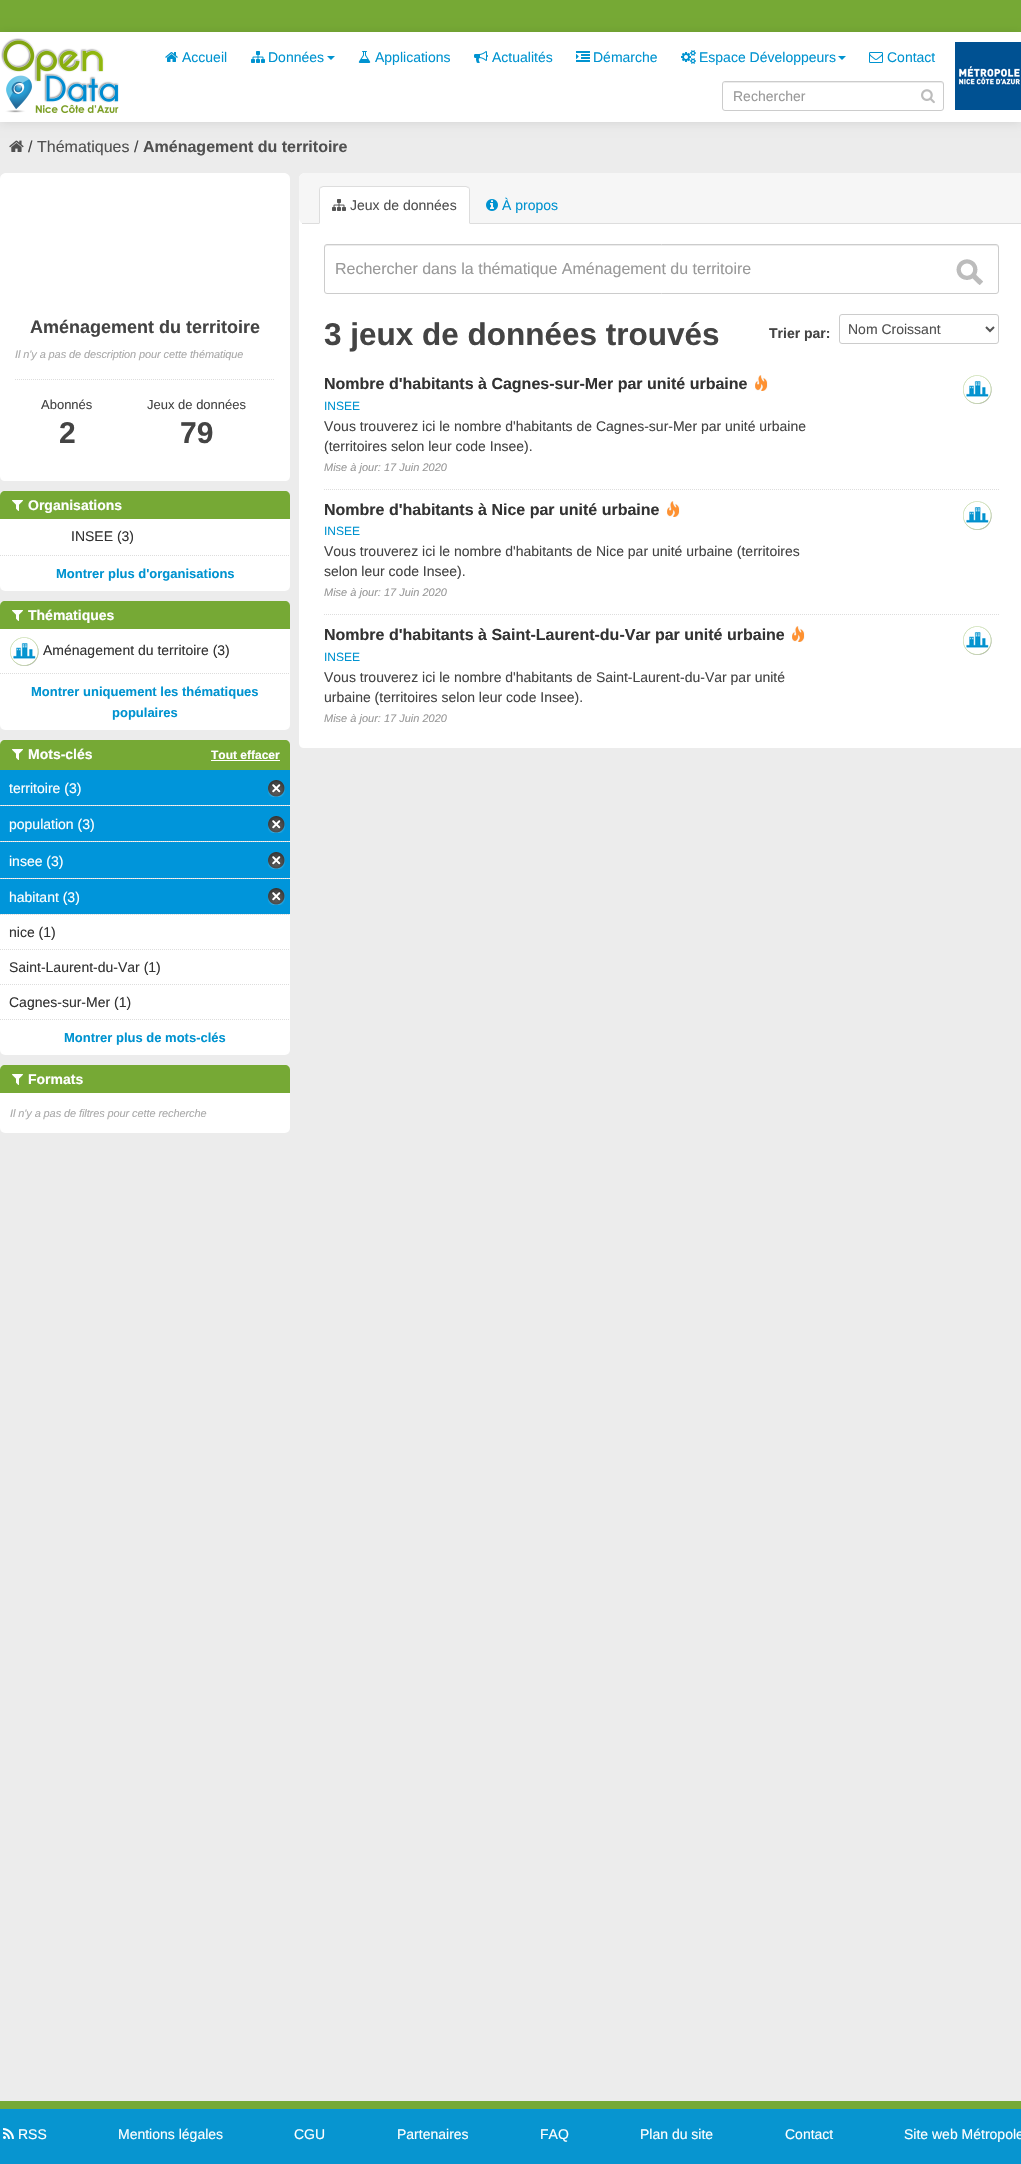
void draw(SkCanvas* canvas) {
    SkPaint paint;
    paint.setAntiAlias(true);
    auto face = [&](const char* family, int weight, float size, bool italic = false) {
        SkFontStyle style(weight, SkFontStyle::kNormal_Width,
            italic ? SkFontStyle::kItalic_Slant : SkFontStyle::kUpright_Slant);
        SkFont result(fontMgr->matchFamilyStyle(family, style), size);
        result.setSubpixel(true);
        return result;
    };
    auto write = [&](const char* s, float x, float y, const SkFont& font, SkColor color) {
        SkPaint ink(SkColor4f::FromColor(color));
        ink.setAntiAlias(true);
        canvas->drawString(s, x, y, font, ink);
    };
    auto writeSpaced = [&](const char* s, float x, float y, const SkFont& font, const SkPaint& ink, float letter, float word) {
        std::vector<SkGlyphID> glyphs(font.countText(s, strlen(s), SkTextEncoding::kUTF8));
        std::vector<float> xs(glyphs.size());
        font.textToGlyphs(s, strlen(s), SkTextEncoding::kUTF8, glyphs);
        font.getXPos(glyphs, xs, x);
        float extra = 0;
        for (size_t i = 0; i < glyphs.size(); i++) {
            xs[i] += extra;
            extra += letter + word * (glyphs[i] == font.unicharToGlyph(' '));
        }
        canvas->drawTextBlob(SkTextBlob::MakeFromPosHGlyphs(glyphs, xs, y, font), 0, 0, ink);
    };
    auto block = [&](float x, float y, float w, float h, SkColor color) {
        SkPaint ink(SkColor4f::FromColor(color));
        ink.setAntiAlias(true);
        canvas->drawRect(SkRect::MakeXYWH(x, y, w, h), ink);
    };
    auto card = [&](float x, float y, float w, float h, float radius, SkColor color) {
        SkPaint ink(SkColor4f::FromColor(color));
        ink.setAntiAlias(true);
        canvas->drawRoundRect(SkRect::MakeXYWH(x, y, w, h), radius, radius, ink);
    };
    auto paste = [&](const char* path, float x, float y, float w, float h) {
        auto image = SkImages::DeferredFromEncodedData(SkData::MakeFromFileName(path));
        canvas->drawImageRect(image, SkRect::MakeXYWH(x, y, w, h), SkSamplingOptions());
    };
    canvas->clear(SkColorSetRGB(236, 236, 236));
    block(0, 0, 1021, 32, SkColorSetRGB(118, 169, 53));
    paint.setColor(SkColorSetARGB(26, 0, 0, 0));
    paint.setMaskFilter(SkMaskFilter::MakeBlur(kNormal_SkBlurStyle, 5));
    canvas->drawRect(SkRect::MakeXYWH(0, 33, 1021, 90), paint);
    paint.setMaskFilter(nullptr);
    block(0, 32, 1021, 90, SK_ColorWHITE);
    paste("pic1.png", 1, 38, 118, 75);
    paste("pic2.png", 165, 52, 13, 10);
    auto kFont1 = face("Liberation Sans", 400, 14);
    write("Accueil", 182, 62, kFont1, SkColorSetRGB(0, 147, 208));
    paste("pic3.png", 251, 51, 14, 12);
    write("Données", 268, 62, kFont1, SkColorSetRGB(0, 147, 208));
    paint.setColor(SkColorSetRGB(0, 147, 208));
    canvas->drawPath(SkPathBuilder().moveTo(327, 56).lineTo(335, 56).lineTo(331, 60).close().detach(), paint);
    paste("pic4.png", 358, 51, 13, 12);
    write("Applications", 375, 62, kFont1, SkColorSetRGB(0, 147, 208));
    paste("pic5.png", 474, 51, 14, 12);
    write("Actualités", 492, 62, kFont1, SkColorSetRGB(0, 147, 208));
    paste("pic6.png", 576, 51, 14, 11);
    write("Démarche", 593, 62, kFont1, SkColorSetRGB(0, 147, 208));
    paste("pic7.png", 681, 50, 15, 14);
    write("Espace Développeurs", 699, 62, kFont1, SkColorSetRGB(0, 147, 208));
    canvas->drawPath(SkPathBuilder().moveTo(838, 56).lineTo(846, 56).lineTo(842, 60).close().detach(), paint);
    paste("pic8.png", 869, 52, 14, 11);
    write("Contact", 887, 62, kFont1, SkColorSetRGB(0, 147, 208));
    paint.setColor(SkColorSetRGB(236, 236, 236));
    canvas->drawPath(SkPathBuilder().moveTo(725, 83).lineTo(941, 83).cubicTo(942, 83, 943, 84, 943, 85).cubicTo(943, 84, 943, 82, 941, 82).lineTo(725, 82).lineTo(724, 83).lineTo(723, 85).cubicTo(723, 84, 724, 83, 725, 83).close().detach(), paint);
    paint.setStyle(SkPaint::kStroke_Style);
    paint.setStrokeWidth(1);
    paint.setColor(SkColorSetRGB(204, 204, 204));
    canvas->drawRoundRect(SkRect::MakeXYWH(722.5f, 81.5f, 221, 29), 2.5f, 2.5f, paint);
    write("Rechercher", 733, 101, kFont1, SkColorSetRGB(153, 153, 153));
    paste("pic9.png", 921, 89, 14, 15);
    paste("pic10.png", 955, 42, 66, 68);
    paste("pic11.png", 9, 140, 15, 12);
    auto kFont2 = face("Liberation Sans", 400, 16);
    write("/", 28, 152, kFont2, SkColorSetRGB(68, 68, 68));
    write("Thématiques", 37, 152, kFont2, SkColorSetRGB(80, 80, 80));
    write("/", 134, 152, kFont2, SkColorSetRGB(68, 68, 68));
    auto kFont3 = face("Liberation Sans", 700, 16);
    write("Aménagement du territoire", 143, 152, kFont3, SkColorSetRGB(80, 80, 80));
    paint.setStyle(SkPaint::kFill_Style);
    paint.setColor(SK_ColorWHITE);
    canvas->drawPath(SkPathBuilder().moveTo(6, 173).lineTo(284, 173).cubicTo(287.5f, 173, 290, 175.5f, 290, 179).lineTo(290, 476).cubicTo(290, 479, 288, 481, 285, 481).lineTo(5, 481).cubicTo(2, 481, 0, 479, 0, 476).lineTo(0, 179).cubicTo(0, 175.5f, 2.5f, 173, 6, 173).close().detach(), paint);
    auto kFont4 = face("Liberation Sans", 700, 18);
    write("Aménagement du territoire", 30, 333, kFont4, SkColorSetRGB(68, 68, 68));
    auto kFont5 = face("Liberation Sans", 400, 11, true);
    paint.setColor(SkColorSetRGB(170, 170, 170));
    writeSpaced("Il n'y a pas de description pour cette thématique", 15, 358, kFont5, paint, -0.1f, 0);
    paint.setStyle(SkPaint::kStroke_Style);
    paint.setColor(SkColorSetRGB(221, 221, 221));
    paint.setPathEffect(SkDashPathEffect::Make({{1, 1}}, 0));
    canvas->drawPath(SkPathBuilder().moveTo(15, 379.5f).lineTo(275, 379.5f).detach(), paint);
    paint.setPathEffect(nullptr);
    auto kFont6 = face("Liberation Sans", 400, 13);
    write("Abonnés", 41, 409, kFont6, SkColorSetRGB(68, 68, 68));
    auto kFont7 = face("Liberation Sans", 700, 30);
    write("2", 59, 443, kFont7, SkColorSetRGB(68, 68, 68));
    write("Jeux de données", 147, 409, kFont6, SkColorSetRGB(68, 68, 68));
    write("79", 180, 443, kFont7, SkColorSetRGB(68, 68, 68));
    card(0, 491, 290, 100, 5, SK_ColorWHITE);
    paint.setStyle(SkPaint::kFill_Style);
    paint.setColor(SkColorSetRGB(118, 169, 53));
    canvas->drawPath(SkPathBuilder().moveTo(5, 491).lineTo(285, 491).cubicTo(288, 491, 290, 493, 290, 496).lineTo(290, 519).lineTo(0, 519).lineTo(0, 496).cubicTo(0, 493, 2, 491, 5, 491).close().detach(), paint);
    paste("pic12.png", 12, 500, 11, 11);
    auto kFont8 = face("Liberation Sans", 700, 14);
    write("Organisations", 28, 510, kFont8, SK_ColorWHITE);
    write("INSEE (3)", 71, 541, kFont1, SkColorSetRGB(51, 51, 51));
    paint.setStyle(SkPaint::kStroke_Style);
    paint.setColor(SkColorSetRGB(221, 221, 221));
    paint.setPathEffect(SkDashPathEffect::Make({{1, 1}}, 0));
    canvas->drawPath(SkPathBuilder().moveTo(0, 555.5f).lineTo(290, 555.5f).detach(), paint);
    paint.setPathEffect(nullptr);
    auto kFont9 = face("Liberation Sans", 700, 13);
    write("Montrer plus d'organisations", 56, 578, kFont9, SkColorSetRGB(0, 147, 208));
    card(0, 601, 290, 129, 5, SK_ColorWHITE);
    paint.setStyle(SkPaint::kFill_Style);
    paint.setColor(SkColorSetRGB(118, 169, 53));
    canvas->drawPath(SkPathBuilder().moveTo(5, 601).lineTo(285, 601).cubicTo(288, 601, 290, 603, 290, 606).lineTo(290, 629).lineTo(0, 629).lineTo(0, 606).cubicTo(0, 603, 2, 601, 5, 601).close().detach(), paint);
    paste("pic12.png", 12, 610, 11, 11);
    write("Thématiques", 28, 620, kFont8, SK_ColorWHITE);
    paste("pic13.png", 10, 637, 29, 29);
    write("Aménagement du territoire (3)", 43, 655, kFont1, SkColorSetRGB(51, 51, 51));
    paint.setStyle(SkPaint::kStroke_Style);
    paint.setColor(SkColorSetRGB(221, 221, 221));
    paint.setPathEffect(SkDashPathEffect::Make({{1, 1}}, 0));
    canvas->drawPath(SkPathBuilder().moveTo(0, 673.5f).lineTo(290, 673.5f).detach(), paint);
    paint.setPathEffect(nullptr);
    write("Montrer uniquement les thématiques", 31, 696, kFont9, SkColorSetRGB(0, 147, 208));
    write("populaires", 112, 717, kFont9, SkColorSetRGB(0, 147, 208));
    card(0, 740, 290, 315, 5, SK_ColorWHITE);
    paint.setStyle(SkPaint::kFill_Style);
    paint.setColor(SkColorSetRGB(118, 169, 53));
    canvas->drawPath(SkPathBuilder().moveTo(5, 740).lineTo(285, 740).cubicTo(288, 740, 290, 742, 290, 745).lineTo(290, 770).lineTo(0, 770).lineTo(0, 745).cubicTo(0, 742, 2, 740, 5, 740).close().detach(), paint);
    paste("pic12.png", 12, 749, 11, 11);
    write("Mots-clés", 28, 759, kFont8, SK_ColorWHITE);
    auto kFont10 = face("Liberation Sans", 700, 12);
    write("Tout effacer", 211, 759, kFont10, SK_ColorWHITE);
    block(211, 760, 69, 1, SK_ColorWHITE);
    block(1, 805, 289, 1, SkColorSetRGB(246, 246, 246));
    paint.setStyle(SkPaint::kStroke_Style);
    paint.setColor(SkColorSetRGB(221, 221, 221));
    paint.setPathEffect(SkDashPathEffect::Make({{1, 1}}, 0));
    canvas->drawPath(SkPathBuilder().moveTo(0, 805.5f).lineTo(290, 805.5f).detach(), paint);
    paint.setPathEffect(nullptr);
    block(0, 770, 290, 35, SkColorSetRGB(0, 149, 218));
    write("territoire (3)", 9, 793, kFont1, SK_ColorWHITE);
    paste("pic14.png", 268, 780, 17, 17);
    block(1, 841, 289, 1, SkColorSetRGB(246, 246, 246));
    paint.setPathEffect(SkDashPathEffect::Make({{1, 1}}, 0));
    canvas->drawPath(SkPathBuilder().moveTo(0, 841.5f).lineTo(290, 841.5f).detach(), paint);
    paint.setPathEffect(nullptr);
    block(0, 806, 290, 35, SkColorSetRGB(0, 149, 218));
    write("population (3)", 9, 829, kFont1, SK_ColorWHITE);
    paste("pic14.png", 268, 816, 17, 17);
    block(1, 878, 289, 1, SkColorSetRGB(246, 246, 246));
    paint.setPathEffect(SkDashPathEffect::Make({{1, 1}}, 0));
    canvas->drawPath(SkPathBuilder().moveTo(0, 878.5f).lineTo(290, 878.5f).detach(), paint);
    paint.setPathEffect(nullptr);
    block(0, 842, 290, 36, SkColorSetRGB(0, 149, 218));
    write("insee (3)", 9, 866, kFont1, SK_ColorWHITE);
    paste("pic14.png", 268, 852, 17, 17);
    block(1, 914, 289, 1, SkColorSetRGB(246, 246, 246));
    paint.setPathEffect(SkDashPathEffect::Make({{1, 1}}, 0));
    canvas->drawPath(SkPathBuilder().moveTo(0, 914.5f).lineTo(290, 914.5f).detach(), paint);
    paint.setPathEffect(nullptr);
    block(0, 879, 290, 35, SkColorSetRGB(0, 149, 218));
    write("habitant (3)", 9, 902, kFont1, SK_ColorWHITE);
    paste("pic14.png", 268, 888, 17, 17);
    paint.setPathEffect(SkDashPathEffect::Make({{1, 1}}, 0));
    canvas->drawPath(SkPathBuilder().moveTo(0, 949.5f).lineTo(290, 949.5f).detach(), paint);
    paint.setPathEffect(nullptr);
    write("nice (1)", 9, 937, kFont1, SkColorSetRGB(51, 51, 51));
    paint.setPathEffect(SkDashPathEffect::Make({{1, 1}}, 0));
    canvas->drawPath(SkPathBuilder().moveTo(0, 984.5f).lineTo(290, 984.5f).detach(), paint);
    paint.setPathEffect(nullptr);
    write("Saint-Laurent-du-Var (1)", 9, 972, kFont1, SkColorSetRGB(51, 51, 51));
    write("Cagnes-sur-Mer (1)", 9, 1007, kFont1, SkColorSetRGB(51, 51, 51));
    paint.setPathEffect(SkDashPathEffect::Make({{1, 1}}, 0));
    canvas->drawPath(SkPathBuilder().moveTo(0, 1019.5f).lineTo(290, 1019.5f).detach(), paint);
    paint.setPathEffect(nullptr);
    write("Montrer plus de mots-clés", 64, 1042, kFont9, SkColorSetRGB(0, 147, 208));
    card(0, 1065, 290, 68, 5, SK_ColorWHITE);
    paint.setStyle(SkPaint::kFill_Style);
    paint.setColor(SkColorSetRGB(118, 169, 53));
    canvas->drawPath(SkPathBuilder().moveTo(5, 1065).lineTo(285, 1065).cubicTo(288, 1065, 290, 1067, 290, 1070).lineTo(290, 1093).lineTo(0, 1093).lineTo(0, 1070).cubicTo(0, 1067, 2, 1065, 5, 1065).close().detach(), paint);
    paste("pic12.png", 12, 1074, 11, 11);
    write("Formats", 28, 1084, kFont8, SK_ColorWHITE);
    paint.setColor(SkColorSetRGB(170, 170, 170));
    writeSpaced("Il n'y a pas de filtres pour cette recherche", 10, 1117, kFont5, paint, -0.1f, 0);
    paint.setColor(SK_ColorWHITE);
    canvas->drawPath(SkPathBuilder().moveTo(305, 173).lineTo(1018, 173).cubicTo(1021.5f, 173, 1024, 175.5f, 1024, 179).lineTo(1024, 743).cubicTo(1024, 746, 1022, 748, 1019, 748).lineTo(304, 748).cubicTo(301, 748, 299, 746, 299, 743).lineTo(299, 179).cubicTo(299, 175.5f, 301.5f, 173, 305, 173).close().detach(), paint);
    card(299, 173, 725, 51, 6, SkColorSetRGB(246, 246, 246));
    block(302, 223, 719, 1, SkColorSetRGB(221, 221, 221));
    canvas->drawPath(SkPathBuilder().moveTo(323, 186).lineTo(466, 186).cubicTo(468, 186, 470, 188, 470, 190).lineTo(470, 224).lineTo(319, 224).lineTo(319, 190).cubicTo(319, 188, 321, 186, 323, 186).close().detach(), paint);
    paint.setColor(SkColorSetRGB(221, 221, 221));
    canvas->drawPath(SkPathBuilder().moveTo(323, 186).lineTo(320, 187).lineTo(321, 188).lineTo(323, 187).lineTo(466, 187).lineTo(468, 188).lineTo(469, 187).lineTo(466, 186).close().detach(), paint);
    canvas->drawPath(SkPathBuilder().moveTo(470, 224).lineTo(470, 190).cubicTo(470, 189, 469.5f, 188, 469, 187).lineTo(468, 188).cubicTo(469, 188, 469, 189, 469, 190).lineTo(469, 223).close().detach(), paint);
    canvas->drawPath(SkPathBuilder().moveTo(319, 224).lineTo(320, 223).lineTo(320, 190).cubicTo(320, 189, 320, 188, 321, 188).lineTo(320, 187).cubicTo(319.5f, 188, 319, 189, 319, 190).close().detach(), paint);
    paste("pic15.png", 332, 199, 14, 12);
    write("Jeux de données", 350, 210, kFont1, SkColorSetRGB(80, 80, 80));
    paste("pic16.png", 486, 199, 12, 12);
    write("À propos", 502, 210, kFont1, SkColorSetRGB(0, 147, 208));
    paint.setColor(SkColorSetRGB(236, 236, 236));
    canvas->drawPath(SkPathBuilder().moveTo(327, 246).lineTo(996, 246).cubicTo(997, 246, 998, 247, 998, 248).cubicTo(998, 247, 998, 245, 996, 245).lineTo(327, 245).cubicTo(325, 245, 325, 247, 325, 248).cubicTo(325, 247, 326, 246, 327, 246).close().detach(), paint);
    paint.setStyle(SkPaint::kStroke_Style);
    paint.setColor(SkColorSetRGB(204, 204, 204));
    canvas->drawRoundRect(SkRect::MakeXYWH(324.5f, 244.5f, 674, 49), 2.5f, 2.5f, paint);
    write("Rechercher dans la thématique Aménagement du territoire", 335, 274, kFont2, SkColorSetRGB(153, 153, 153));
    paste("pic17.png", 956, 259, 27, 26);
    auto kFont11 = face("Liberation Sans", 700, 31.5f);
    write("3 jeux de données trouvés", 324, 345, kFont11, SkColorSetRGB(68, 68, 68));
    write("Trier par:", 769, 338, kFont8, SkColorSetRGB(68, 68, 68));
    canvas->drawRoundRect(SkRect::MakeXYWH(839.5f, 314.5f, 159, 29), 2.5f, 2.5f, paint);
    paint.setStrokeWidth(2);
    paint.setColor(SkColorSetRGB(85, 85, 85));
    canvas->drawPath(SkPathBuilder().moveTo(986, 327).lineTo(990, 331).lineTo(994, 327).detach(), paint);
    write("Nom Croissant", 848, 334, kFont1, SkColorSetRGB(80, 80, 80));
    paint.setStrokeWidth(1);
    paint.setColor(SkColorSetRGB(221, 221, 221));
    paint.setPathEffect(SkDashPathEffect::Make({{1, 1}}, 0));
    canvas->drawPath(SkPathBuilder().moveTo(324, 489.5f).lineTo(999, 489.5f).detach(), paint);
    paint.setPathEffect(nullptr);
    write("Nombre d'habitants à Cagnes-sur-Mer par unité urbaine", 324, 389, kFont3, SkColorSetRGB(51, 51, 51));
    paste("pic18.png", 755, 375, 13, 16);
    paste("pic13.png", 963, 375, 29, 29);
    auto kFont12 = face("Liberation Sans", 400, 12);
    write("INSEE", 324, 410, kFont12, SkColorSetRGB(0, 147, 208));
    write("Vous trouverez ici le nombre d'habitants de Cagnes-sur-Mer par unité urbaine", 324, 431, kFont1, SkColorSetRGB(68, 68, 68));
    write("(territoires selon leur code Insee).", 324, 451, kFont1, SkColorSetRGB(68, 68, 68));
    write("Mise à jour: 17 Juin 2020", 324, 471, kFont5, SkColorSetRGB(153, 153, 153));
    paint.setPathEffect(SkDashPathEffect::Make({{1, 1}}, 0));
    canvas->drawPath(SkPathBuilder().moveTo(324, 614.5f).lineTo(999, 614.5f).detach(), paint);
    paint.setPathEffect(nullptr);
    write("Nombre d'habitants à Nice par unité urbaine", 324, 515, kFont3, SkColorSetRGB(51, 51, 51));
    paste("pic18.png", 667, 501, 13, 16);
    paste("pic13.png", 963, 501, 29, 29);
    write("INSEE", 324, 535, kFont12, SkColorSetRGB(0, 147, 208));
    write("Vous trouverez ici le nombre d'habitants de Nice par unité urbaine (territoires", 324, 556, kFont1, SkColorSetRGB(68, 68, 68));
    write("selon leur code Insee).", 324, 576, kFont1, SkColorSetRGB(68, 68, 68));
    write("Mise à jour: 17 Juin 2020", 324, 596, kFont5, SkColorSetRGB(153, 153, 153));
    write("Nombre d'habitants à Saint-Laurent-du-Var par unité urbaine", 324, 640, kFont3, SkColorSetRGB(51, 51, 51));
    paste("pic18.png", 792, 626, 13, 16);
    paste("pic13.png", 963, 626, 29, 29);
    write("INSEE", 324, 661, kFont12, SkColorSetRGB(0, 147, 208));
    write("Vous trouverez ici le nombre d'habitants de Saint-Laurent-du-Var par unité", 324, 682, kFont1, SkColorSetRGB(68, 68, 68));
    write("urbaine (territoires selon leur code Insee).", 324, 702, kFont1, SkColorSetRGB(68, 68, 68));
    write("Mise à jour: 17 Juin 2020", 324, 722, kFont5, SkColorSetRGB(153, 153, 153));
    block(0, 2109, 1021, 55, SkColorSetRGB(7, 149, 208));
    block(0, 2101, 1021, 8, SkColorSetRGB(118, 169, 53));
    paste("pic19.png", 3, 2128, 11, 11);
    write("RSS", 18, 2139, kFont1, SK_ColorWHITE);
    write("Mentions légales", 118, 2139, kFont1, SK_ColorWHITE);
    write("CGU", 294, 2139, kFont1, SK_ColorWHITE);
    write("Partenaires", 397, 2139, kFont1, SK_ColorWHITE);
    write("FAQ", 540, 2139, kFont1, SK_ColorWHITE);
    write("Plan du site", 640, 2139, kFont1, SK_ColorWHITE);
    write("Contact", 785, 2139, kFont1, SK_ColorWHITE);
    write("Site web Métropole", 904, 2139, kFont1, SK_ColorWHITE);
}
